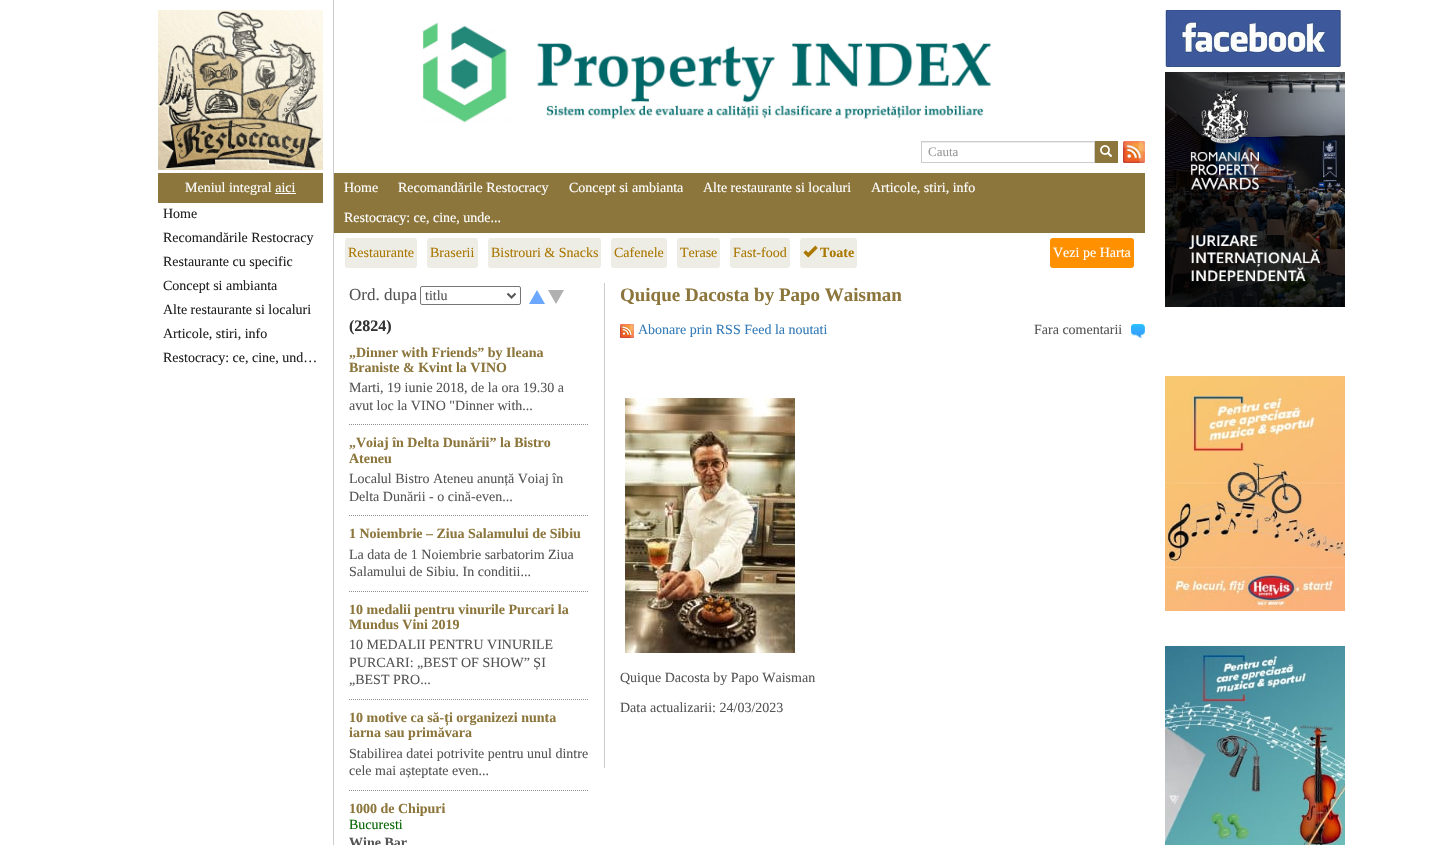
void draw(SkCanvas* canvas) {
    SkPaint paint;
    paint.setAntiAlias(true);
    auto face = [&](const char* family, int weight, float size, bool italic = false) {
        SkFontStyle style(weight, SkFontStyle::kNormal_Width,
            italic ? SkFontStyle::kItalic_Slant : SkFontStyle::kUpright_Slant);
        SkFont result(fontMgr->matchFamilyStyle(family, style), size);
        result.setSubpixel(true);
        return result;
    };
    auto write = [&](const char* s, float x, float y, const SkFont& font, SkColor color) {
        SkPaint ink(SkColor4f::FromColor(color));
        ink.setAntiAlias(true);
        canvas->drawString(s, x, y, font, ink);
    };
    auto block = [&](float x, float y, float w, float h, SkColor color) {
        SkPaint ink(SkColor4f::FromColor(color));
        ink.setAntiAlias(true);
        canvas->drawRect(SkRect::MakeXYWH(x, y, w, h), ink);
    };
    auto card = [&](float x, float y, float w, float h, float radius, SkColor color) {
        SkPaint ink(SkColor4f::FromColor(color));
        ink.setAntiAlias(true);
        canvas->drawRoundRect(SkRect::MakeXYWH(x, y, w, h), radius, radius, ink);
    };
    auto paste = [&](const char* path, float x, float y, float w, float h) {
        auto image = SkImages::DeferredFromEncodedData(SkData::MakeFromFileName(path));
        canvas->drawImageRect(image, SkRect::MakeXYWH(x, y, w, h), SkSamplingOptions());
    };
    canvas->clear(SK_ColorWHITE);
    paste("pic1.png", 158, 10, 165, 160);
    block(158, 173, 165, 30, SkColorSetRGB(140, 118, 60));
    auto kFont1 = face("Liberation Serif", 400, 14);
    write("Meniul integral aici", 185, 192, kFont1, SK_ColorWHITE);
    block(275, 193, 21, 1, SK_ColorWHITE);
    write("Home", 163, 218, kFont1, SkColorSetRGB(33, 33, 33));
    write("Recomandările Restocracy", 163, 242, kFont1, SkColorSetRGB(33, 33, 33));
    write("Restaurante cu specific", 163, 266, kFont1, SkColorSetRGB(33, 33, 33));
    write("Concept si ambianta", 163, 290, kFont1, SkColorSetRGB(33, 33, 33));
    write("Alte restaurante si localuri", 163, 314, kFont1, SkColorSetRGB(33, 33, 33));
    write("Articole, stiri, info", 163, 338, kFont1, SkColorSetRGB(33, 33, 33));
    write("Restocracy: ce, cine, und…", 163, 362, kFont1, SkColorSetRGB(33, 33, 33));
    block(333, 0, 1, 845, SkColorSetRGB(204, 204, 204));
    paste("pic2.png", 422, 22, 569, 101);
    block(922, 142, 172, 1, SkColorSetRGB(236, 236, 236));
    paint.setStyle(SkPaint::kStroke_Style);
    paint.setStrokeWidth(1);
    paint.setColor(SkColorSetRGB(204, 204, 204));
    canvas->drawRect(SkRect::MakeXYWH(921.5f, 141.5f, 173, 21), paint);
    auto kFont2 = face("Liberation Serif", 400, 13);
    write("Cauta", 928, 156, kFont2, SkColorSetRGB(153, 153, 153));
    block(1095, 141, 23, 22, SkColorSetRGB(140, 118, 60));
    paste("pic3.png", 1100, 145, 12, 12);
    paste("pic4.png", 1123, 141, 22, 22);
    block(334, 173, 811, 60, SkColorSetRGB(140, 118, 60));
    write("Home", 344, 192, kFont1, SK_ColorWHITE);
    write("Recomandările Restocracy", 398, 192, kFont1, SK_ColorWHITE);
    write("Concept si ambianta", 569, 192, kFont1, SK_ColorWHITE);
    write("Alte restaurante si localuri", 703, 192, kFont1, SK_ColorWHITE);
    write("Articole, stiri, info", 871, 192, kFont1, SK_ColorWHITE);
    write("Restocracy: ce, cine, unde...", 344, 222, kFont1, SK_ColorWHITE);
    card(345, 238, 72, 30, 3, SkColorSetRGB(237, 237, 230));
    write("Restaurante", 348, 257, kFont1, SkColorSetRGB(170, 119, 0));
    card(427, 238, 51, 30, 3, SkColorSetRGB(237, 237, 230));
    write("Braserii", 430, 257, kFont1, SkColorSetRGB(170, 119, 0));
    card(488, 238, 113, 30, 3, SkColorSetRGB(237, 237, 230));
    write("Bistrouri & Snacks", 491, 257, kFont1, SkColorSetRGB(170, 119, 0));
    card(611, 238, 56, 30, 3, SkColorSetRGB(237, 237, 230));
    write("Cafenele", 614, 257, kFont1, SkColorSetRGB(170, 119, 0));
    card(677, 238, 43, 30, 3, SkColorSetRGB(237, 237, 230));
    write("Terase", 680, 257, kFont1, SkColorSetRGB(170, 119, 0));
    card(730, 238, 60, 30, 3, SkColorSetRGB(237, 237, 230));
    write("Fast-food", 733, 257, kFont1, SkColorSetRGB(170, 119, 0));
    card(800, 238, 57, 30, 3, SkColorSetRGB(237, 237, 230));
    paste("pic5.png", 803, 245, 15, 13);
    auto kFont3 = face("Liberation Serif", 700, 14);
    write("Toate", 820, 257, kFont3, SkColorSetRGB(170, 119, 0));
    card(1050, 238, 84, 30, 3, SkColorSetRGB(255, 144, 0));
    write("Vezi pe Harta", 1053, 257, kFont1, SK_ColorWHITE);
    auto kFont4 = face("Liberation Serif", 400, 17);
    write("Ord. dupa", 349, 300, kFont4, SkColorSetRGB(85, 85, 85));
    paint.setColor(SkColorSetRGB(118, 118, 118));
    canvas->drawRoundRect(SkRect::MakeXYWH(420.5f, 286.5f, 100, 18), 1.5f, 1.5f, paint);
    paint.setStrokeWidth(2);
    paint.setColor(SkColorSetRGB(85, 85, 85));
    canvas->drawPath(SkPathBuilder().moveTo(507.5f, 293.5f).lineTo(511.5f, 297.5f).lineTo(515.5f, 293.5f).detach(), paint);
    write("titlu", 425, 300, kFont1, SkColorSetRGB(85, 85, 85));
    paint.setStyle(SkPaint::kFill_Style);
    paint.setColor(SkColorSetRGB(108, 167, 255));
    canvas->drawPath(SkPathBuilder().moveTo(545, 304).lineTo(529, 304).lineTo(537, 290).close().detach(), paint);
    paint.setColor(SkColorSetRGB(176, 176, 176));
    canvas->drawPath(SkPathBuilder().moveTo(548, 290).lineTo(564, 290).lineTo(556, 304).close().detach(), paint);
    auto kFont5 = face("Liberation Serif", 700, 16);
    write("(2824)", 349, 331, kFont5, SkColorSetRGB(51, 51, 51));
    write("„Dinner with Friends” by Ileana", 349, 357, kFont3, SkColorSetRGB(140, 118, 60));
    write("Braniste & Kvint la VINO", 349, 372, kFont3, SkColorSetRGB(140, 118, 60));
    write("Marti, 19 iunie 2018, de la ora 19.30 a", 349, 392, kFont1, SkColorSetRGB(85, 85, 85));
    write("avut loc la VINO \"Dinner with...", 349, 410, kFont1, SkColorSetRGB(85, 85, 85));
    paint.setStyle(SkPaint::kStroke_Style);
    paint.setStrokeWidth(1);
    paint.setColor(SkColorSetRGB(143, 143, 143));
    paint.setPathEffect(SkDashPathEffect::Make({{1, 1}}, 0));
    canvas->drawPath(SkPathBuilder().moveTo(349, 424.5f).lineTo(589, 424.5f).detach(), paint);
    paint.setPathEffect(nullptr);
    write("„Voiaj în Delta Dunării” la Bistro", 349, 447, kFont3, SkColorSetRGB(140, 118, 60));
    write("Ateneu", 349, 463, kFont3, SkColorSetRGB(140, 118, 60));
    write("Localul Bistro Ateneu anunță Voiaj în", 349, 483, kFont1, SkColorSetRGB(85, 85, 85));
    write("Delta Dunării - o cină-even...", 349, 501, kFont1, SkColorSetRGB(85, 85, 85));
    paint.setPathEffect(SkDashPathEffect::Make({{1, 1}}, 0));
    canvas->drawPath(SkPathBuilder().moveTo(349, 515.5f).lineTo(589, 515.5f).detach(), paint);
    paint.setPathEffect(nullptr);
    write("1 Noiembrie – Ziua Salamului de Sibiu", 349, 538, kFont3, SkColorSetRGB(140, 118, 60));
    write("La data de 1 Noiembrie sarbatorim Ziua", 349, 559, kFont1, SkColorSetRGB(85, 85, 85));
    write("Salamului de Sibiu. In conditii...", 349, 576, kFont1, SkColorSetRGB(85, 85, 85));
    paint.setPathEffect(SkDashPathEffect::Make({{1, 1}}, 0));
    canvas->drawPath(SkPathBuilder().moveTo(349, 591.5f).lineTo(589, 591.5f).detach(), paint);
    paint.setPathEffect(nullptr);
    write("10 medalii pentru vinurile Purcari la", 349, 614, kFont3, SkColorSetRGB(140, 118, 60));
    write("Mundus Vini 2019", 349, 629, kFont3, SkColorSetRGB(140, 118, 60));
    write("10 MEDALII PENTRU VINURILE", 349, 649, kFont1, SkColorSetRGB(85, 85, 85));
    write("PURCARI: „BEST OF SHOW” ȘI", 349, 667, kFont1, SkColorSetRGB(85, 85, 85));
    write("„BEST PRO...", 349, 684, kFont1, SkColorSetRGB(85, 85, 85));
    paint.setPathEffect(SkDashPathEffect::Make({{1, 1}}, 0));
    canvas->drawPath(SkPathBuilder().moveTo(349, 699.5f).lineTo(589, 699.5f).detach(), paint);
    paint.setPathEffect(nullptr);
    write("10 motive ca să-ți organizezi nunta", 349, 722, kFont3, SkColorSetRGB(140, 118, 60));
    write("iarna sau primăvara", 349, 737, kFont3, SkColorSetRGB(140, 118, 60));
    write("Stabilirea datei potrivite pentru unul dintre", 349, 758, kFont1, SkColorSetRGB(85, 85, 85));
    write("cele mai așteptate even...", 349, 775, kFont1, SkColorSetRGB(85, 85, 85));
    paint.setPathEffect(SkDashPathEffect::Make({{1, 1}}, 0));
    canvas->drawPath(SkPathBuilder().moveTo(349, 790.5f).lineTo(589, 790.5f).detach(), paint);
    paint.setPathEffect(nullptr);
    write("1000 de Chipuri", 349, 813, kFont3, SkColorSetRGB(140, 118, 60));
    write("Bucuresti", 349, 829, kFont1, SkColorSetRGB(5, 102, 3));
    write("Wine Bar", 349, 847, kFont3, SkColorSetRGB(85, 85, 85));
    block(604, 283, 1, 485, SkColorSetRGB(204, 204, 204));
    auto kFont6 = face("Liberation Serif", 700, 19);
    write("Quique Dacosta by Papo Waisman", 620, 301, kFont6, SkColorSetRGB(140, 118, 60));
    paste("pic6.png", 620, 324, 14, 14);
    write("Abonare prin RSS Feed la noutati", 638, 334, kFont1, SkColorSetRGB(51, 122, 183));
    write("Fara comentarii", 1034, 334, kFont1, SkColorSetRGB(85, 85, 85));
    paste("pic7.png", 1131, 324, 14, 14);
    paste("pic8.png", 625, 398, 170, 255);
    write("Quique Dacosta by Papo Waisman", 620, 682, kFont1, SkColorSetRGB(85, 85, 85));
    write("Data actualizarii: 24/03/2023", 620, 712, kFont1, SkColorSetRGB(85, 85, 85));
    paste("pic9.png", 1165, 10, 176, 57);
    paste("pic10.png", 1165, 72, 180, 235);
    paste("pic11.png", 1165, 376, 180, 235);
    paste("pic12.png", 1165, 646, 180, 199);
}
